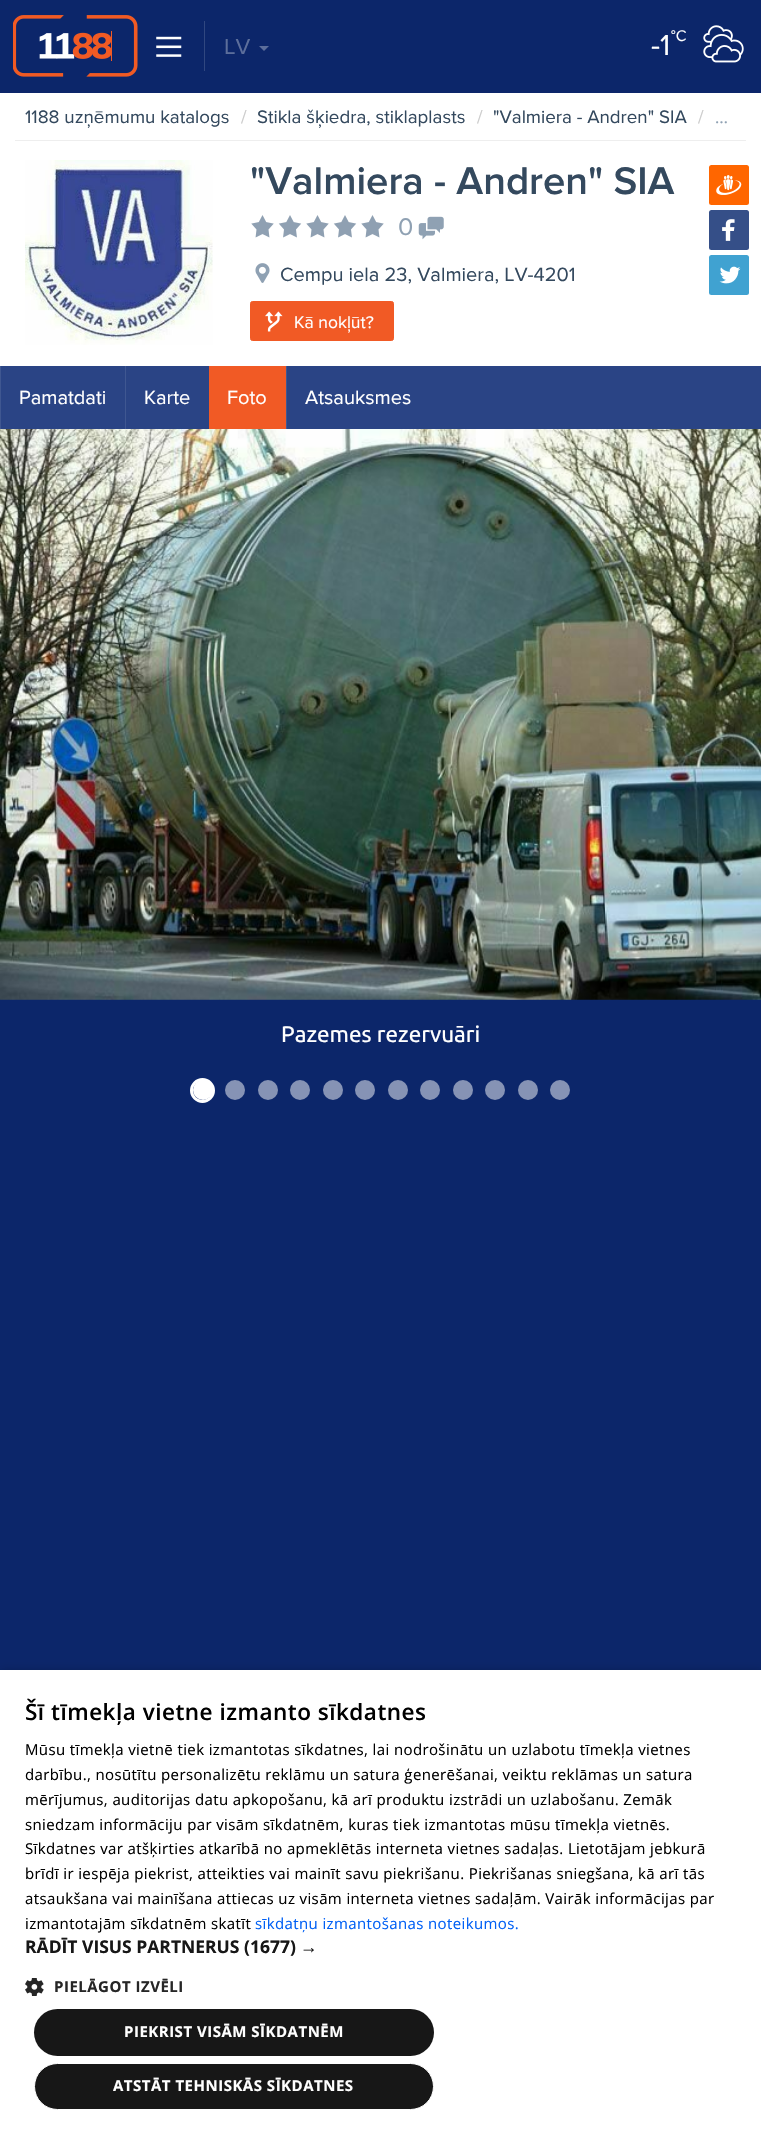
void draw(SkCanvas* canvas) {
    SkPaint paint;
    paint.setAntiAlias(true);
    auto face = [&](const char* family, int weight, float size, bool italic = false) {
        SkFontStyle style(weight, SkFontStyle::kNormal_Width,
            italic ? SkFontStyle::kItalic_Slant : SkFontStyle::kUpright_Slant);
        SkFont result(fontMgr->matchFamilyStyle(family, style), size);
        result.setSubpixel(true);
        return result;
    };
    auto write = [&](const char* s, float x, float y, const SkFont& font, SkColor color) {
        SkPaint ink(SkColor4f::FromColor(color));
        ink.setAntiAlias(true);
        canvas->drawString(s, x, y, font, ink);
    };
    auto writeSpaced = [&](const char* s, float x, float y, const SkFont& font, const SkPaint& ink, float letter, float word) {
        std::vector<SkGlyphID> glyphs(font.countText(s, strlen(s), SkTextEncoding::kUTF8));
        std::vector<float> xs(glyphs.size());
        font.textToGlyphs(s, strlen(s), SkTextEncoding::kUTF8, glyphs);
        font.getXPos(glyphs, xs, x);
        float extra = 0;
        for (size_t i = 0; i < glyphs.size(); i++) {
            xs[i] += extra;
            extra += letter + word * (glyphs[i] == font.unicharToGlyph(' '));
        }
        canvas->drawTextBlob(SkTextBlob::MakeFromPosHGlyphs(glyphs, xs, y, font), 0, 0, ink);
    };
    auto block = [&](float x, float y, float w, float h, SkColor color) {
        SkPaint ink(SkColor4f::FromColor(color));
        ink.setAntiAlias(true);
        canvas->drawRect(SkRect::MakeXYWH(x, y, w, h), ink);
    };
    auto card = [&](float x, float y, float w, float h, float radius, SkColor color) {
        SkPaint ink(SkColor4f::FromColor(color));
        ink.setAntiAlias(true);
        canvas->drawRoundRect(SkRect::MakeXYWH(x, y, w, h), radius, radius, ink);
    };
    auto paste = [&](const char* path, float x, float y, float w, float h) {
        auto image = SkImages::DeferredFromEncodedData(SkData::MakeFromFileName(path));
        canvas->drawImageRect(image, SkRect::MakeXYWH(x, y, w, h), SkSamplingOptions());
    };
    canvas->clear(SK_ColorWHITE);
    block(0, 0, 761, 93, SkColorSetRGB(12, 38, 106));
    paste("pic1.png", 13, 15, 125, 62);
    block(111, 31, 1, 30, SkColorSetRGB(240, 90, 37));
    paste("pic2.png", 156, 36, 26, 21);
    block(204, 21, 1, 50, SkColorSetRGB(48, 71, 128));
    auto kFont1 = face("Proxima Nova", 400, 22.5f);
    write("LV", 224, 54, kFont1, SkColorSetRGB(92, 110, 155));
    paint.setColor(SkColorSetRGB(92, 110, 155));
    canvas->drawPath(SkPathBuilder().moveTo(259, 46).lineTo(269, 46).lineTo(264, 51).close().detach(), paint);
    auto kFont2 = face("Proxima Nova", 400, 30);
    write("-1", 651, 55, kFont2, SK_ColorWHITE);
    auto kFont3 = face("Proxima Nova", 400, 16);
    write("°C", 671, 41, kFont3, SK_ColorWHITE);
    paste("pic3.png", 703, 25, 41, 38);
    block(15, 140, 731, 1, SkColorSetRGB(238, 238, 238));
    auto kFont4 = face("Proxima Nova", 400, 18.75f);
    write("1188 uzņēmumu katalogs", 25, 123, kFont4, SkColorSetRGB(52, 73, 94));
    write("/", 241, 123, kFont4, SkColorSetRGB(204, 204, 204));
    write("Stikla šķiedra, stiklaplasts", 257, 123, kFont4, SkColorSetRGB(52, 73, 94));
    write("/", 477, 123, kFont4, SkColorSetRGB(204, 204, 204));
    write("\"Valmiera - Andren\" SIA", 493, 123, kFont4, SkColorSetRGB(52, 73, 94));
    write("/", 698, 123, kFont4, SkColorSetRGB(204, 204, 204));
    write("…", 715, 123, kFont4, SkColorSetRGB(143, 161, 179));
    paste("pic4.png", 25, 160, 188, 185);
    auto kFont5 = face("Proxima Nova", 600, 40);
    write("\"Valmiera - Andren\" SIA", 250, 194, kFont5, SkColorSetRGB(52, 73, 94));
    paste("pic5.png", 251, 215, 133, 23);
    auto kFont6 = face("Proxima Nova", 400, 25);
    write("0", 398, 235, kFont6, SkColorSetRGB(143, 161, 179));
    paste("pic6.png", 418, 216, 26, 24);
    card(709, 165, 40, 40, 2.5f, SkColorSetRGB(255, 102, 0));
    paste("pic7.png", 716, 175, 26, 20);
    card(709, 210, 40, 40, 2.5f, SkColorSetRGB(53, 79, 136));
    paste("pic8.png", 722, 219, 13, 22);
    card(709, 255, 40, 40, 2.5f, SkColorSetRGB(64, 162, 209));
    paste("pic9.png", 719, 266, 22, 18);
    paste("pic10.png", 255, 263, 15, 20);
    auto kFont7 = face("Proxima Nova", 400, 20);
    write("Cempu iela 23, Valmiera, LV-4201", 280, 281, kFont7, SkColorSetRGB(52, 73, 94));
    paint.setColor(SkColorSetRGB(241, 90, 37));
    canvas->drawRoundRect(SkRect::MakeXYWH(250.5f, 301.5f, 143, 39), 2, 2, paint);
    paint.setStyle(SkPaint::kStroke_Style);
    paint.setStrokeWidth(1);
    canvas->drawRoundRect(SkRect::MakeXYWH(250.5f, 301.5f, 143, 39), 2, 2, paint);
    paste("pic11.png", 265, 311, 18, 21);
    auto kFont8 = face("Proxima Nova", 400, 17.5f);
    write("Kā nokļūt?", 294, 328, kFont8, SK_ColorWHITE);
    block(1, 366, 760, 63, SkColorSetRGB(42, 68, 133));
    block(0, 366, 1, 63, SkColorSetRGB(63, 87, 145));
    write("Pamatdati", 19, 404, kFont7, SK_ColorWHITE);
    block(125, 366, 1, 63, SkColorSetRGB(63, 87, 145));
    write("Karte", 144, 404, kFont7, SK_ColorWHITE);
    block(209, 366, 77, 63, SkColorSetRGB(241, 90, 37));
    write("Foto", 227, 404, kFont7, SK_ColorWHITE);
    block(286, 366, 1, 63, SkColorSetRGB(63, 87, 145));
    write("Atsauksmes", 305, 404, kFont7, SK_ColorWHITE);
    block(0, 999, 761, 671, SkColorSetRGB(12, 38, 106));
    paste("pic12.png", 0, 429, 761, 571);
    auto kFont9 = face("Ubuntu", 400, 22.5f);
    write("Pazemes rezervuāri", 281, 1042, kFont9, SK_ColorWHITE);
    paint.setStrokeWidth(3);
    paint.setColor(SK_ColorWHITE);
    canvas->drawCircle(202.5f, 1090.5f, 11, paint);
    paint.setStyle(SkPaint::kFill_Style);
    canvas->drawCircle(203, 1090, 10, paint);
    paint.setColor(SkColorSetRGB(134, 147, 181));
    canvas->drawCircle(235, 1090, 10, paint);
    canvas->drawCircle(268, 1090, 10, paint);
    canvas->drawCircle(300, 1090, 10, paint);
    canvas->drawCircle(333, 1090, 10, paint);
    canvas->drawCircle(365, 1090, 10, paint);
    canvas->drawCircle(398, 1090, 10, paint);
    canvas->drawCircle(430, 1090, 10, paint);
    canvas->drawCircle(463, 1090, 10, paint);
    canvas->drawCircle(495, 1090, 10, paint);
    canvas->drawCircle(528, 1090, 10, paint);
    canvas->drawCircle(560, 1090, 10, paint);
    paint.setColor(SkColorSetARGB(89, 0, 0, 0));
    paint.setMaskFilter(SkMaskFilter::MakeBlur(kNormal_SkBlurStyle, 5));
    canvas->drawRect(SkRect::MakeXYWH(1, 1673, 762, 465), paint);
    paint.setMaskFilter(nullptr);
    block(0, 1670, 761, 464, SK_ColorWHITE);
    auto kFont10 = face("Open Sans", 600, 22.5f);
    paint.setColor(SK_ColorBLACK);
    writeSpaced("Šī tīmekļa vietne izmanto sīkdatnes", 25, 1720, kFont10, paint, 0.5f, 0);
    auto kFont11 = face("Open Sans", 400, 15);
    writeSpaced("Mūsu tīmekļa vietnē tiek izmantotas sīkdatnes, lai nodrošinātu un uzlabotu tīmekļa vietnes", 25, 1755, kFont11, paint, 0.38f, 0);
    writeSpaced("darbību., nosūtītu personalizētu reklāmu un satura ģenerēšanai, veiktu reklāmas un satura", 25, 1780, kFont11, paint, 0.38f, 0);
    writeSpaced("mērījumus, auditorijas datu apkopošanu, kā arī produktu izstrādi un uzlabošanu. Zemāk", 25, 1805, kFont11, paint, 0.38f, 0);
    writeSpaced("sniedzam informāciju par visām sīkdatnēm, kuras tiek izmantotas mūsu tīmekļa vietnēs.", 25, 1830, kFont11, paint, 0.38f, 0);
    writeSpaced("Sīkdatnes var atšķirties atkarībā no apmeklētās interneta vietnes sadaļas. Lietotājam jebkurā", 25, 1854, kFont11, paint, 0.38f, 0);
    writeSpaced("brīdī ir iespēja piekrist, atteikties vai mainīt savu piekrišanu. Piekrišanas sniegšana, kā arī tās", 25, 1879, kFont11, paint, 0.38f, 0);
    writeSpaced("atsaukšana vai mainīšana attiecas uz visām interneta vietnes sadaļām. Vairāk informācijas par", 25, 1904, kFont11, paint, 0.38f, 0);
    writeSpaced("izmantotajām sīkdatnēm skatīt", 25, 1929, kFont11, paint, 0.38f, 0);
    paint.setColor(SkColorSetRGB(0, 96, 245));
    writeSpaced("sīkdatņu izmantošanas noteikumos.", 255, 1929, kFont11, paint, 0.38f, 0);
    auto kFont12 = face("Open Sans", 700, 17.5f);
    write("RĀDĪT VISUS PARTNERUS (1677)", 25, 1953, kFont12, SkColorSetRGB(23, 23, 23));
    auto kFont13 = face("Liberation Sans", 700, 17.5f);
    write("→", 300, 1953, kFont13, SkColorSetRGB(23, 23, 23));
    paste("pic13.png", 25, 1978, 19, 18);
    auto kFont14 = face("Open Sans", 700, 15);
    paint.setColor(SkColorSetRGB(38, 38, 38));
    writeSpaced("PIELĀGOT IZVĒLI", 54, 1992, kFont14, paint, 0.5f, 0);
    card(34, 2009, 400, 47, 23.5f, SkColorSetRGB(23, 23, 23));
    paint.setColor(SK_ColorWHITE);
    writeSpaced("PIEKRIST VISĀM SĪKDATNĒM", 124, 2037, kFont14, paint, 0.5f, 0);
    paint.setColor(SkColorSetRGB(23, 23, 23));
    canvas->drawRoundRect(SkRect::MakeXYWH(34.5f, 2063.5f, 399, 46), 23, 23, paint);
    paint.setStyle(SkPaint::kStroke_Style);
    paint.setStrokeWidth(1);
    paint.setColor(SK_ColorWHITE);
    canvas->drawRoundRect(SkRect::MakeXYWH(34.5f, 2063.5f, 399, 46), 23, 23, paint);
    paint.setStyle(SkPaint::kFill_Style);
    writeSpaced("ATSTĀT TEHNISKĀS SĪKDATNES", 113, 2091, kFont14, paint, 0.5f, 0);
}
